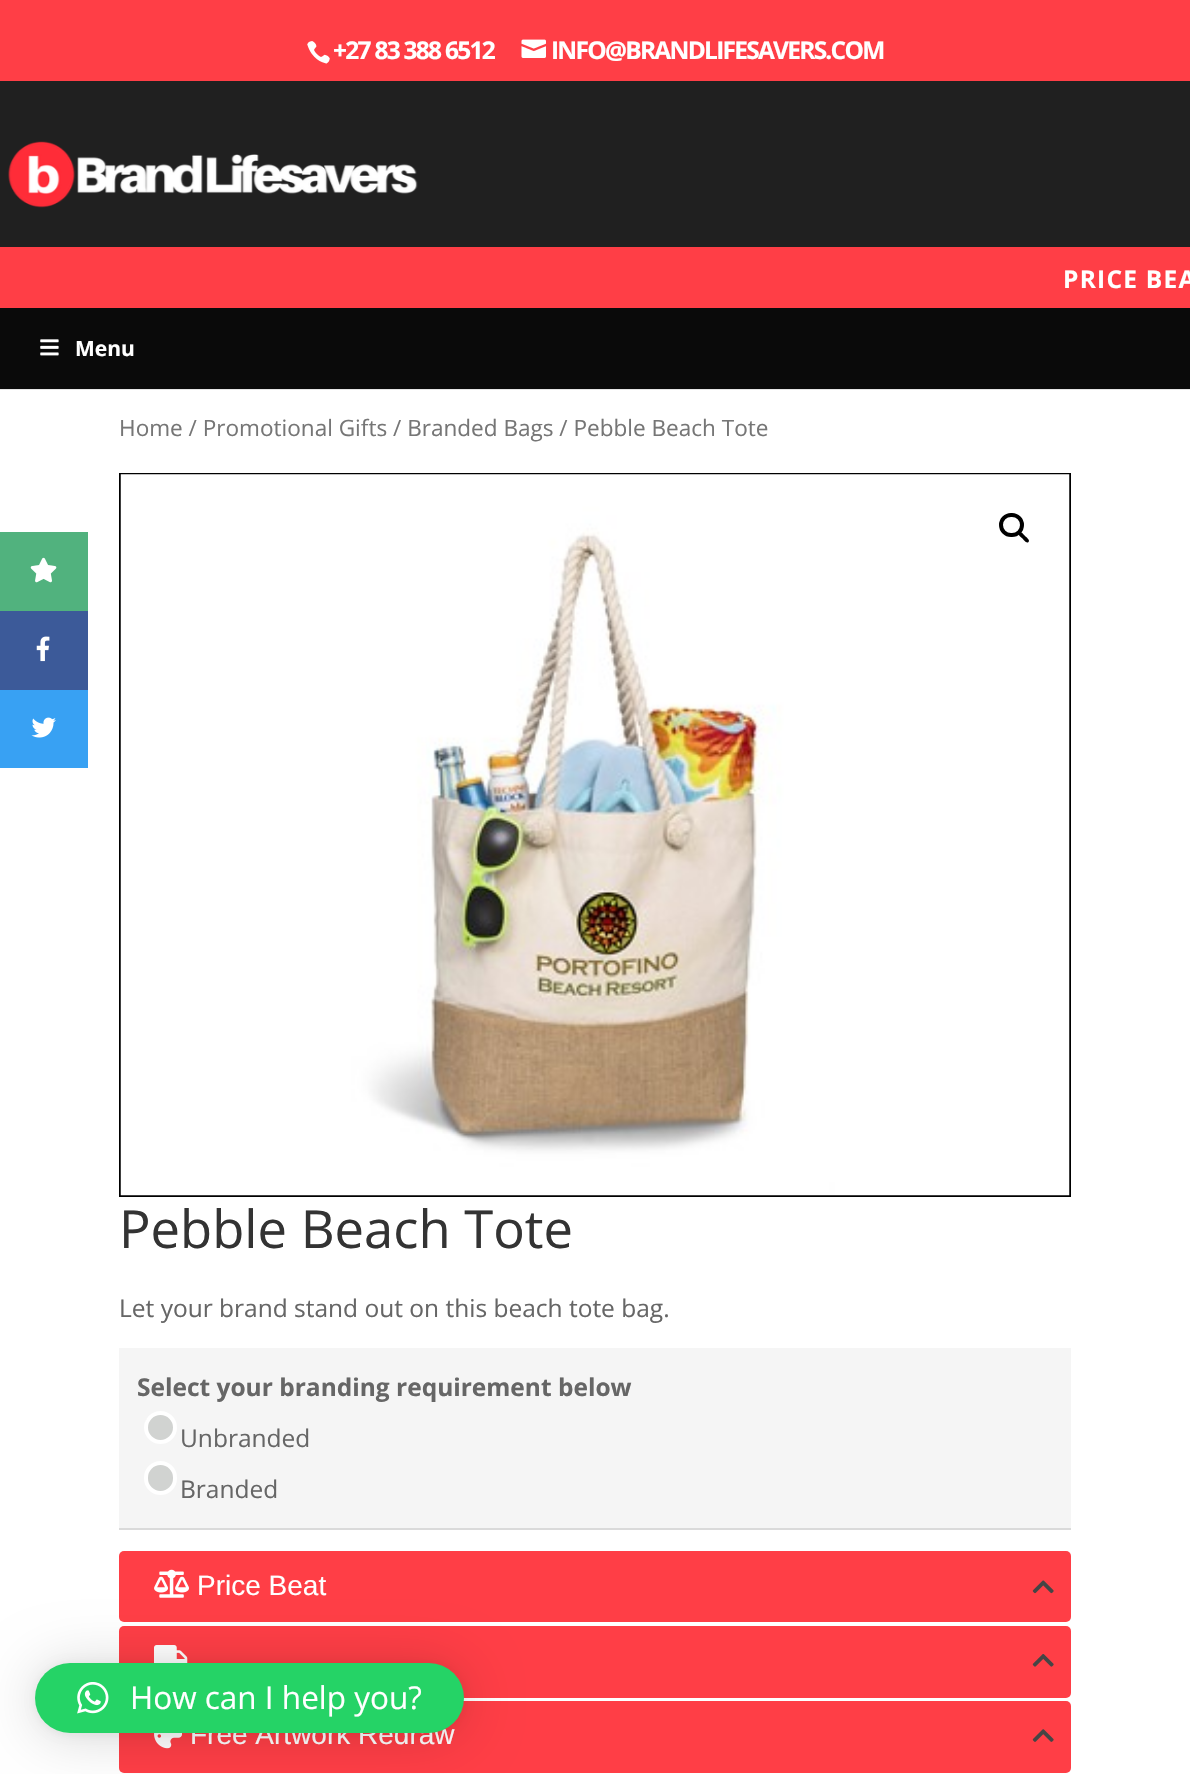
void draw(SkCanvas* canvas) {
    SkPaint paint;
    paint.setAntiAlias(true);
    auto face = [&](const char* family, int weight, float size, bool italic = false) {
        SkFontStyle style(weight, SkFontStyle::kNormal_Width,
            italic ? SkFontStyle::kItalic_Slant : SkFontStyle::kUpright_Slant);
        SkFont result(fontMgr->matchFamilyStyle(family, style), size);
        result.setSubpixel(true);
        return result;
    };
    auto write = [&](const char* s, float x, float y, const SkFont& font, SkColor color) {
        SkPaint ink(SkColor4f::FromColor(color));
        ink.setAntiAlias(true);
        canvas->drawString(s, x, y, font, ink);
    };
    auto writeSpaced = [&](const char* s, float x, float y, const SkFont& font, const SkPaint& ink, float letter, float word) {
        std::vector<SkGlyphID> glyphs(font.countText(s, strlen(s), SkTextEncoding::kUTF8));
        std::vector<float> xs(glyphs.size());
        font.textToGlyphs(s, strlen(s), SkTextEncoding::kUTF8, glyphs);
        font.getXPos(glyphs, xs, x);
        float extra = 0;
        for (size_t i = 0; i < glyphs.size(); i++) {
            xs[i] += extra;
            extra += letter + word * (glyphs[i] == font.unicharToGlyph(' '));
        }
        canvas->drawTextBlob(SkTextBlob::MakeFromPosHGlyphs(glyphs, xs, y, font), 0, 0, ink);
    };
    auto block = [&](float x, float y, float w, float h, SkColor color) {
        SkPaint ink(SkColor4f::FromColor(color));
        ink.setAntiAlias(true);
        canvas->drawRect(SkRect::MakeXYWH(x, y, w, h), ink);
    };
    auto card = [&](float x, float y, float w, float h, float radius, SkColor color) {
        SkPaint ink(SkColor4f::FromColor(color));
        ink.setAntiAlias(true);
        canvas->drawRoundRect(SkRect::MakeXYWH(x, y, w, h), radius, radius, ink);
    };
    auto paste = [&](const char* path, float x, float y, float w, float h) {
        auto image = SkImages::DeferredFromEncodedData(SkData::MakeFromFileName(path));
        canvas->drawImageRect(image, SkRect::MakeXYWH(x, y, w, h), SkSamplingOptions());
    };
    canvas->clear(SK_ColorWHITE);
    block(0, 532, 88, 79, SkColorSetRGB(81, 178, 126));
    paste("pic1.png", 30, 557, 27, 26);
    block(0, 611, 88, 79, SkColorSetRGB(60, 90, 153));
    paste("pic2.png", 36, 636, 14, 26);
    block(0, 690, 88, 78, SkColorSetRGB(56, 161, 243));
    paste("pic3.png", 31, 717, 25, 21);
    block(0, 0, 1190, 81, SkColorSetRGB(255, 62, 70));
    paste("pic4.png", 307, 41, 23, 23);
    auto kFont1 = face("Open Sans", 700, 24.5f);
    paint.setColor(SK_ColorWHITE);
    writeSpaced("+27 83 388 6512", 333, 59, kFont1, paint, -1.75f, 0);
    paste("pic5.png", 521, 39, 25, 19);
    writeSpaced("INFO@BRANDLIFESAVERS.COM", 551, 59, kFont1, paint, -1.75f, 0);
    block(0, 389, 1190, 1, SkColorSetRGB(230, 230, 230));
    block(0, 81, 1190, 166, SkColorSetRGB(32, 32, 32));
    paste("pic6.png", 8, 141, 410, 67);
    block(0, 247, 1190, 61, SkColorSetRGB(255, 62, 70));
    writeSpaced("PRICE BEA", 1063, 288, kFont1, paint, 1.25f, 0);
    block(0, 308, 1190, 81, SkColorSetRGB(10, 10, 10));
    paste("pic7.png", 40, 339, 19, 17);
    auto kFont2 = face("Open Sans", 700, 21);
    write("Menu", 75, 356, kFont2, SK_ColorWHITE);
    auto kFont3 = face("Open Sans", 400, 22.55f);
    write("Home / Promotional Gifts / Branded Bags / Pebble Beach Tote", 119, 436, kFont3, SkColorSetRGB(118, 118, 118));
    paint.setStyle(SkPaint::kStroke_Style);
    paint.setStrokeWidth(2);
    paint.setColor(SK_ColorBLACK);
    canvas->drawRect(SkRect::MakeXYWH(120, 474, 950, 722), paint);
    paste("pic8.png", 120, 474, 950, 722);
    paint.setStrokeWidth(4);
    canvas->drawRoundRect(SkRect::MakeXYWH(1001, 515, 21, 20), 10, 10, paint);
    paint.setStyle(SkPaint::kFill_Style);
    canvas->drawPath(SkPathBuilder().moveTo(1019, 532.5f).cubicTo(1021, 530.5f, 1024, 535, 1025, 536).cubicTo(1026, 537, 1030.5f, 540, 1028.5f, 542).cubicTo(1026.5f, 544, 1023.5f, 539.5f, 1022.5f, 538.5f).cubicTo(1021.5f, 537.5f, 1017, 534.5f, 1019, 532.5f).close().detach(), paint);
    auto kFont4 = face("Open Sans", 400, 52.5f);
    write("Pebble Beach Tote", 119, 1248, kFont4, SkColorSetRGB(51, 51, 51));
    auto kFont5 = face("Open Sans", 400, 24.5f);
    write("Let your brand stand out on this beach tote bag.", 119, 1317, kFont5, SkColorSetRGB(102, 102, 102));
    block(119, 1348, 952, 180, SkColorSetRGB(245, 245, 245));
    write("Select your branding requirement below", 137, 1396, kFont1, SkColorSetRGB(102, 102, 102));
    paint.setStyle(SkPaint::kStroke_Style);
    paint.setStrokeWidth(2);
    paint.setColor(SkColorSetRGB(118, 118, 118));
    canvas->drawCircle(156.5f, 1425.5f, 10.5f, paint);
    paint.setStyle(SkPaint::kFill_Style);
    paint.setColor(SkColorSetRGB(209, 211, 209));
    canvas->drawCircle(160.5f, 1427.5f, 14.5f, paint);
    paint.setStyle(SkPaint::kStroke_Style);
    paint.setStrokeWidth(4);
    paint.setColor(SK_ColorWHITE);
    canvas->drawCircle(160.5f, 1427.5f, 14.5f, paint);
    write("Unbranded", 180, 1447, kFont5, SkColorSetRGB(102, 102, 102));
    paint.setStyle(SkPaint::kFill_Style);
    paint.setColor(SkColorSetRGB(209, 211, 209));
    canvas->drawRoundRect(SkRect::MakeXYWH(146, 1463, 29, 30), 14.5f, 14.5f, paint);
    paint.setStyle(SkPaint::kStroke_Style);
    paint.setColor(SK_ColorWHITE);
    canvas->drawRoundRect(SkRect::MakeXYWH(146, 1463, 29, 30), 14.5f, 14.5f, paint);
    write("Branded", 180, 1498, kFont5, SkColorSetRGB(102, 102, 102));
    block(119, 1528, 952, 2, SkColorSetRGB(218, 218, 218));
    card(119, 1551, 952, 71, 5, SkColorSetRGB(255, 62, 70));
    paste("pic9.png", 154, 1569, 35, 29);
    auto kFont6 = face("Liberation Sans", 400, 28);
    write("Price Beat", 197, 1595, kFont6, SK_ColorWHITE);
    paste("pic10.png", 1032, 1580, 22, 14);
    card(119, 1626, 952, 72, 5, SkColorSetRGB(255, 62, 70));
    paste("pic11.png", 154, 1645, 34, 18);
    paste("pic12.png", 1032, 1654, 22, 13);
    card(119, 1701, 952, 72, 5, SkColorSetRGB(255, 62, 70));
    paste("pic13.png", 154, 1733, 28, 16);
    write("Free Artwork Redraw", 190, 1744, kFont6, SK_ColorWHITE);
    paste("pic14.png", 1032, 1729, 22, 13);
    paint.setStyle(SkPaint::kFill_Style);
    paint.setColor(SkColorSetARGB(41, 0, 0, 0));
    paint.setMaskFilter(SkMaskFilter::MakeBlur(kNormal_SkBlurStyle, 28));
    canvas->drawRoundRect(SkRect::MakeXYWH(35, 1666, 429, 70), 35, 35, paint);
    paint.setMaskFilter(nullptr);
    paint.setColor(SkColorSetARGB(15, 0, 0, 0));
    paint.setMaskFilter(SkMaskFilter::MakeBlur(kNormal_SkBlurStyle, 5));
    canvas->drawRoundRect(SkRect::MakeXYWH(35, 1664, 429, 70), 35, 35, paint);
    paint.setMaskFilter(nullptr);
    card(35, 1663, 429, 70, 35, SkColorSetRGB(37, 211, 102));
    paste("pic15.png", 77, 1682, 32, 32);
    auto kFont7 = face("Open Sans", 400, 31.5f);
    write("How can I help you?", 130, 1709, kFont7, SK_ColorWHITE);
}
